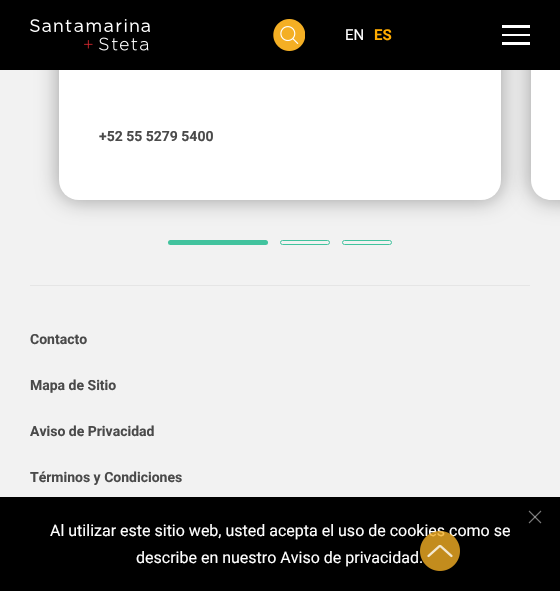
void draw(SkCanvas* canvas) {
    SkPaint paint;
    paint.setAntiAlias(true);
    auto face = [&](const char* family, int weight, float size, bool italic = false) {
        SkFontStyle style(weight, SkFontStyle::kNormal_Width,
            italic ? SkFontStyle::kItalic_Slant : SkFontStyle::kUpright_Slant);
        SkFont result(fontMgr->matchFamilyStyle(family, style), size);
        result.setSubpixel(true);
        return result;
    };
    auto write = [&](const char* s, float x, float y, const SkFont& font, SkColor color) {
        SkPaint ink(SkColor4f::FromColor(color));
        ink.setAntiAlias(true);
        canvas->drawString(s, x, y, font, ink);
    };
    auto block = [&](float x, float y, float w, float h, SkColor color) {
        SkPaint ink(SkColor4f::FromColor(color));
        ink.setAntiAlias(true);
        canvas->drawRect(SkRect::MakeXYWH(x, y, w, h), ink);
    };
    auto card = [&](float x, float y, float w, float h, float radius, SkColor color) {
        SkPaint ink(SkColor4f::FromColor(color));
        ink.setAntiAlias(true);
        canvas->drawRoundRect(SkRect::MakeXYWH(x, y, w, h), radius, radius, ink);
    };
    auto paste = [&](const char* path, float x, float y, float w, float h) {
        auto image = SkImages::DeferredFromEncodedData(SkData::MakeFromFileName(path));
        canvas->drawImageRect(image, SkRect::MakeXYWH(x, y, w, h), SkSamplingOptions());
    };
    canvas->clear(SkColorSetRGB(242, 242, 242));
    paint.setColor(SkColorSetARGB(77, 0, 0, 0));
    paint.setMaskFilter(SkMaskFilter::MakeBlur(kNormal_SkBlurStyle, 10));
    canvas->drawRoundRect(SkRect::MakeXYWH(57, -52, 446, 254), 22, 22, paint);
    paint.setMaskFilter(nullptr);
    card(59, -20, 442, 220, 20, SK_ColorWHITE);
    paint.setMaskFilter(SkMaskFilter::MakeBlur(kNormal_SkBlurStyle, 10));
    canvas->drawRoundRect(SkRect::MakeXYWH(529, -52, 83, 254), 22, 22, paint);
    paint.setMaskFilter(nullptr);
    paint.setColor(SK_ColorWHITE);
    canvas->drawPath(SkPathBuilder().moveTo(551, -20).lineTo(560, -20).lineTo(560, 200).lineTo(551, 200).cubicTo(540, 200, 531, 191, 531, 180).lineTo(531, 0).cubicTo(531, -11, 540, -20, 551, -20).close().detach(), paint);
    block(0, 0, 560, 70, SK_ColorBLACK);
    paste("pic1.png", 30, 19, 120, 32);
    paste("pic2.png", 273, 19, 32, 32);
    auto kFont1 = face("Roboto", 400, 15);
    write("EN", 345, 40, kFont1, SK_ColorWHITE);
    auto kFont2 = face("Roboto", 700, 15);
    write("ES", 374, 40, kFont2, SkColorSetRGB(255, 171, 0));
    block(502, 25, 28, 3, SK_ColorWHITE);
    block(502, 34, 28, 2, SK_ColorWHITE);
    block(502, 42, 28, 3, SK_ColorWHITE);
    auto kFont3 = face("Roboto", 700, 14);
    write("+52 55 5279 5400", 99, 141, kFont3, SkColorSetRGB(74, 74, 74));
    card(168, 240, 100, 5, 2.5f, SkColorSetRGB(66, 195, 158));
    paint.setStyle(SkPaint::kStroke_Style);
    paint.setStrokeWidth(1);
    paint.setColor(SkColorSetRGB(66, 195, 158));
    canvas->drawRoundRect(SkRect::MakeXYWH(280.5f, 240.5f, 49, 4), 2, 2, paint);
    canvas->drawRoundRect(SkRect::MakeXYWH(342.5f, 240.5f, 49, 4), 2, 2, paint);
    block(30, 285, 500, 1, SkColorSetRGB(229, 229, 229));
    write("Contacto", 30, 344, kFont3, SkColorSetRGB(74, 74, 74));
    write("Mapa de Sitio", 30, 390, kFont3, SkColorSetRGB(74, 74, 74));
    write("Aviso de Privacidad", 30, 436, kFont3, SkColorSetRGB(74, 74, 74));
    write("Términos y Condiciones", 30, 482, kFont3, SkColorSetRGB(74, 74, 74));
    block(0, 497, 560, 94, SK_ColorBLACK);
    paint.setStrokeWidth(1.1f);
    paint.setColor(SkColorSetRGB(121, 121, 121));
    canvas->drawPath(SkPathBuilder().moveTo(529, 511).lineTo(541, 523).detach(), paint);
    paint.setColor(SkColorSetARGB(128, 242, 242, 242));
    canvas->drawPath(SkPathBuilder().moveTo(541, 511).lineTo(529, 523).detach(), paint);
    auto kFont4 = face("Roboto", 400, 16);
    write("Al utilizar este sitio web, usted acepta el uso de cookies como se", 50, 536, kFont4, SK_ColorWHITE);
    write("describe en nuestro Aviso de privacidad.", 136, 563, kFont4, SK_ColorWHITE);
    paste("pic3.png", 420, 531, 40, 40);
}
